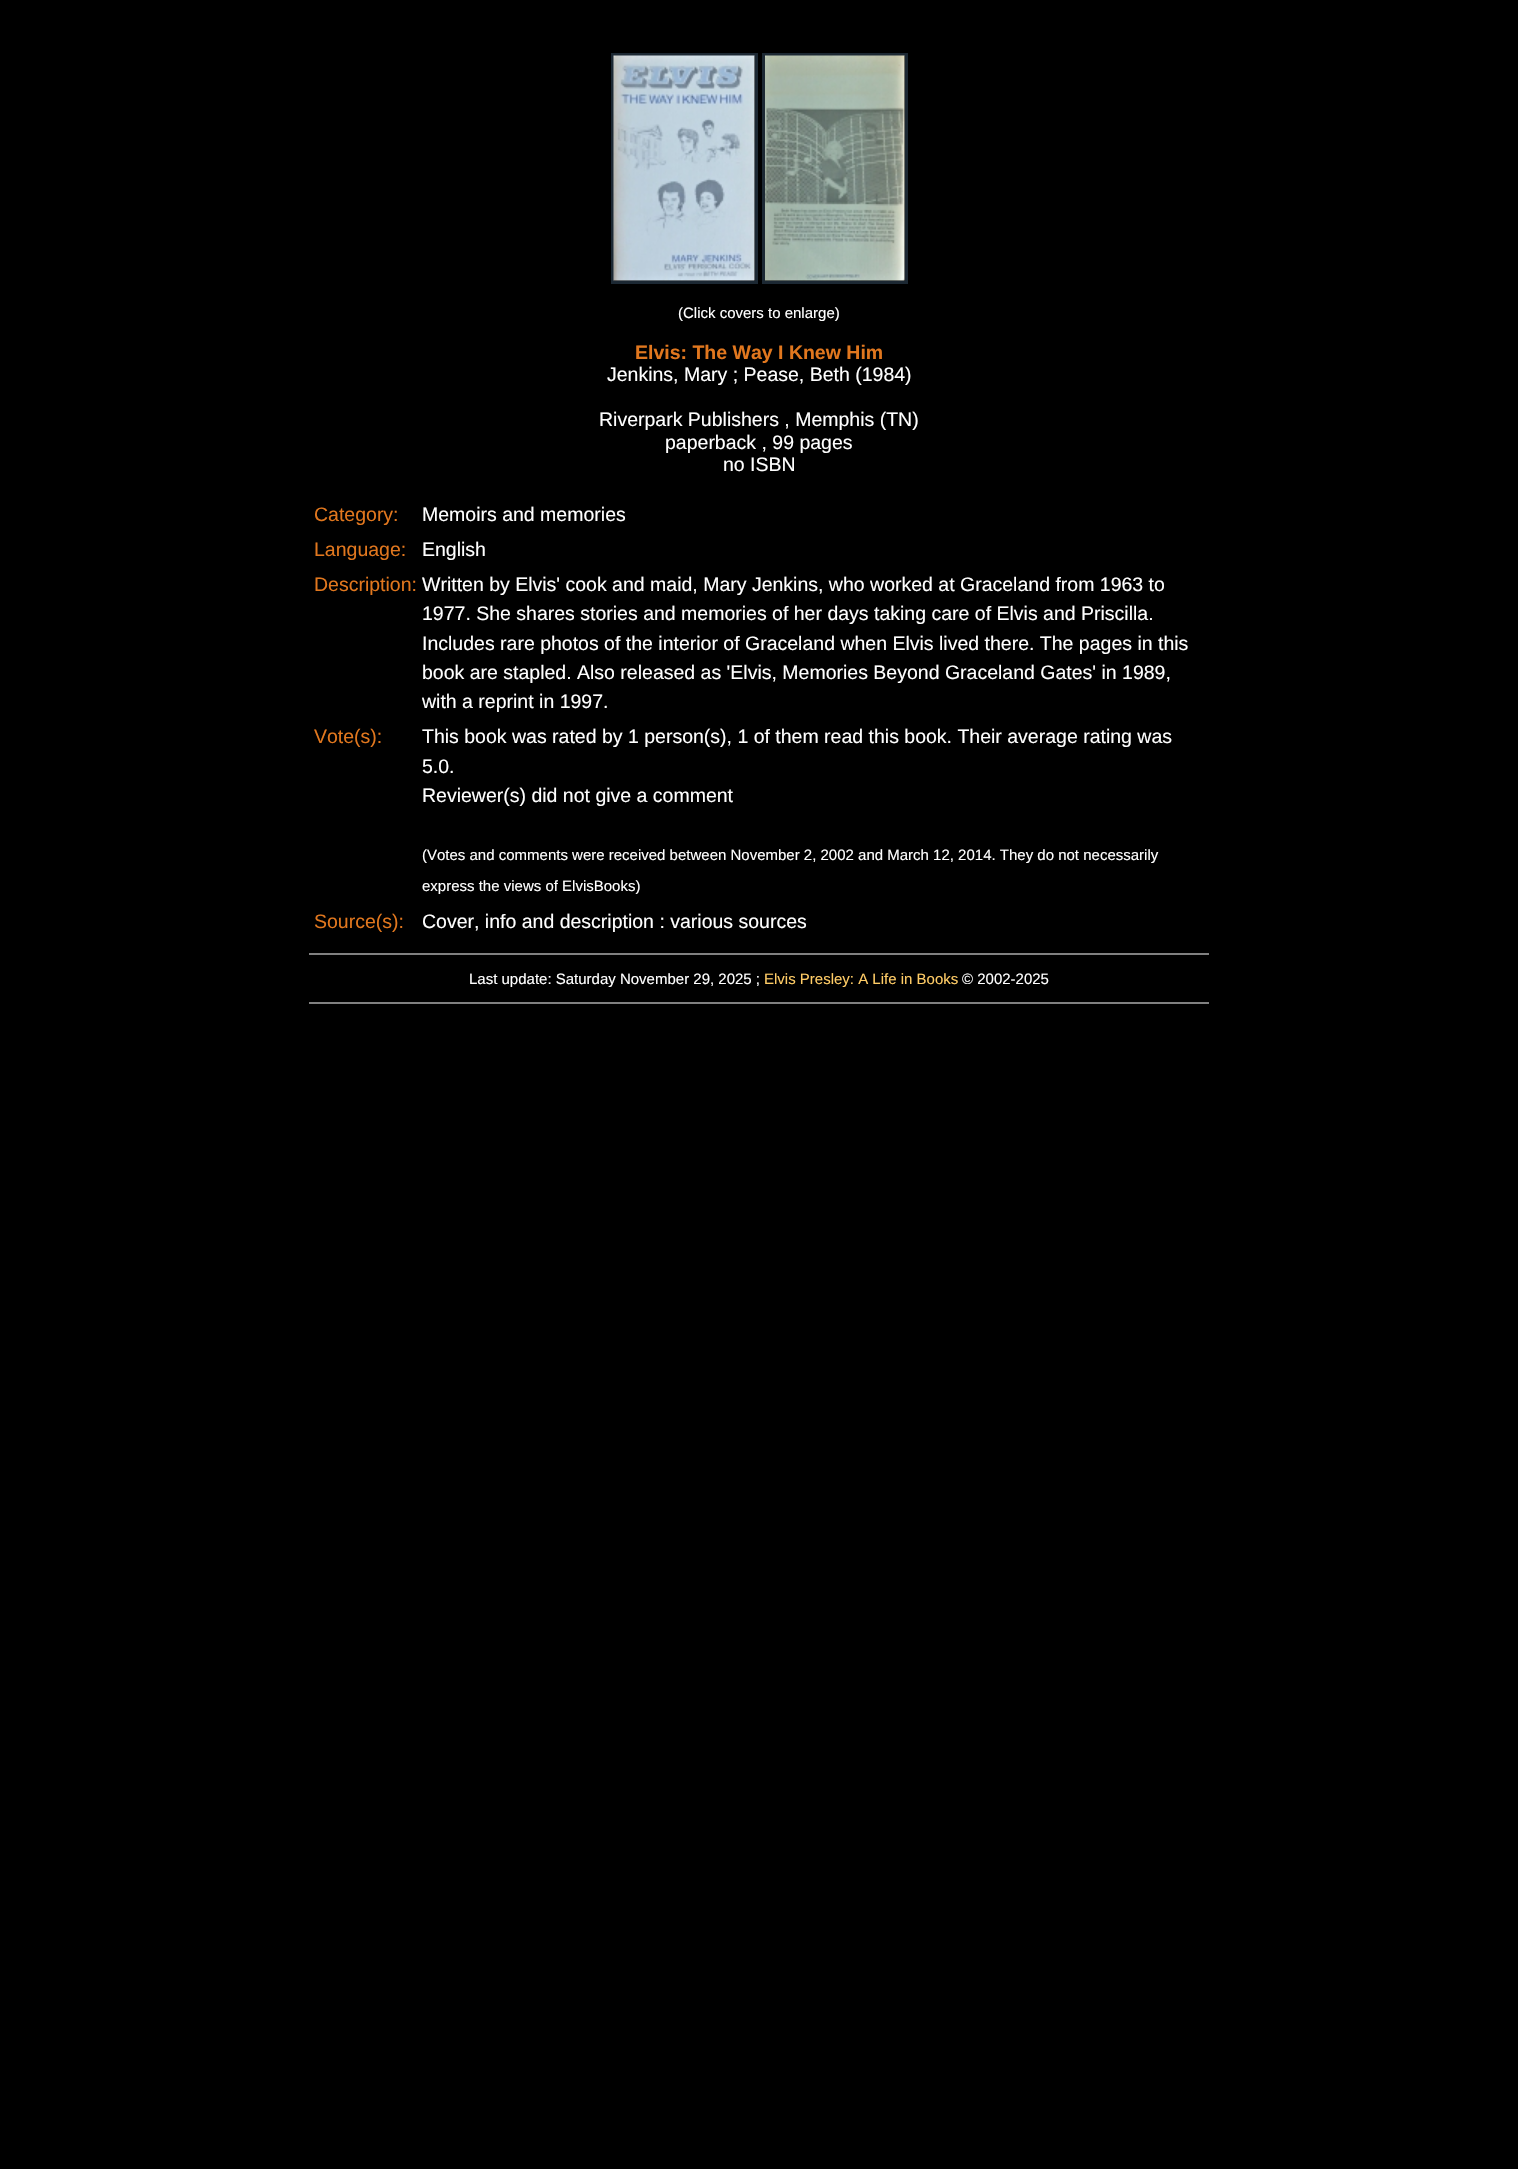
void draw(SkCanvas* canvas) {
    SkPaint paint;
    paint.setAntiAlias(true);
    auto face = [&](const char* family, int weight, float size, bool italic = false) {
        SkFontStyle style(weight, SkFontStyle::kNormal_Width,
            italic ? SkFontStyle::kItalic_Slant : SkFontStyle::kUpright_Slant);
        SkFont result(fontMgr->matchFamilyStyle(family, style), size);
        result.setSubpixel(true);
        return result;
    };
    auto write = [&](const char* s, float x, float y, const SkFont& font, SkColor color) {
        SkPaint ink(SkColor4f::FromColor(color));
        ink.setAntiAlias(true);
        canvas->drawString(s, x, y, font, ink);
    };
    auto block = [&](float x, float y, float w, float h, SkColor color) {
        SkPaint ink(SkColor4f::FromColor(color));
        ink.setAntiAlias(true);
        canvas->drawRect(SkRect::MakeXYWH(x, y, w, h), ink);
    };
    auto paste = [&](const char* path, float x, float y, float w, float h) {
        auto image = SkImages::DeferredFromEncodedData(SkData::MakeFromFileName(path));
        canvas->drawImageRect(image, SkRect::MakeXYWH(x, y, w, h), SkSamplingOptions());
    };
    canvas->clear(SK_ColorBLACK);
    paint.setStyle(SkPaint::kStroke_Style);
    paint.setStrokeWidth(3);
    paint.setColor(SkColorSetRGB(28, 40, 51));
    canvas->drawRect(SkRect::MakeXYWH(612.5f, 54.5f, 144, 228), paint);
    paste("pic1.png", 613, 55, 142, 226);
    canvas->drawRect(SkRect::MakeXYWH(763.5f, 54.5f, 143, 228), paint);
    paste("pic2.png", 765, 55, 140, 226);
    auto kFont1 = face("Liberation Sans", 400, 15);
    write("(Click covers to enlarge)", 678, 318, kFont1, SK_ColorWHITE);
    auto kFont2 = face("Liberation Sans", 700, 19.5f);
    write("Elvis: The Way I Knew Him", 635, 359, kFont2, SkColorSetRGB(225, 119, 30));
    auto kFont3 = face("Liberation Sans", 400, 19.5f);
    write("Jenkins, Mary ; Pease, Beth (1984)", 607, 381, kFont3, SK_ColorWHITE);
    write("Riverpark Publishers , Memphis (TN)", 599, 426, kFont3, SK_ColorWHITE);
    write("paperback , 99 pages", 665, 449, kFont3, SK_ColorWHITE);
    write("no ISBN", 723, 471, kFont3, SK_ColorWHITE);
    write("Category:", 314, 521, kFont3, SkColorSetRGB(225, 119, 30));
    write("Memoirs and memories", 422, 521, kFont3, SK_ColorWHITE);
    write("Language:", 314, 556, kFont3, SkColorSetRGB(225, 119, 30));
    write("English", 422, 556, kFont3, SK_ColorWHITE);
    write("Description:", 314, 591, kFont3, SkColorSetRGB(225, 119, 30));
    write("Written by Elvis' cook and maid, Mary Jenkins, who worked at Graceland from 1963 to", 422, 591, kFont3, SK_ColorWHITE);
    write("1977. She shares stories and memories of her days taking care of Elvis and Priscilla.", 422, 620, kFont3, SK_ColorWHITE);
    write("Includes rare photos of the interior of Graceland when Elvis lived there. The pages in this", 422, 650, kFont3, SK_ColorWHITE);
    write("book are stapled. Also released as 'Elvis, Memories Beyond Graceland Gates' in 1989,", 422, 679, kFont3, SK_ColorWHITE);
    write("with a reprint in 1997.", 422, 708, kFont3, SK_ColorWHITE);
    write("Vote(s):", 314, 743, kFont3, SkColorSetRGB(225, 119, 30));
    write("This book was rated by 1 person(s), 1 of them read this book. Their average rating was", 422, 743, kFont3, SK_ColorWHITE);
    write("5.0.", 422, 773, kFont3, SK_ColorWHITE);
    write("Reviewer(s) did not give a comment", 422, 802, kFont3, SK_ColorWHITE);
    write("(Votes and comments were received between November 2, 2002 and March 12, 2014. They do not necessarily", 422, 860, kFont1, SK_ColorWHITE);
    write("express the views of ElvisBooks)", 422, 891, kFont1, SK_ColorWHITE);
    write("Source(s):", 314, 928, kFont3, SkColorSetRGB(225, 119, 30));
    write("Cover, info and description : various sources", 422, 928, kFont3, SK_ColorWHITE);
    block(309, 953, 900, 2, SkColorSetRGB(128, 128, 128));
    write("Last update: Saturday November 29, 2025 ;", 469, 984, kFont1, SK_ColorWHITE);
    write("Elvis Presley: A Life in Books", 764, 984, kFont1, SkColorSetRGB(255, 204, 102));
    write("© 2002-2025", 962, 984, kFont1, SK_ColorWHITE);
    block(309, 1002, 900, 2, SkColorSetRGB(128, 128, 128));
}
